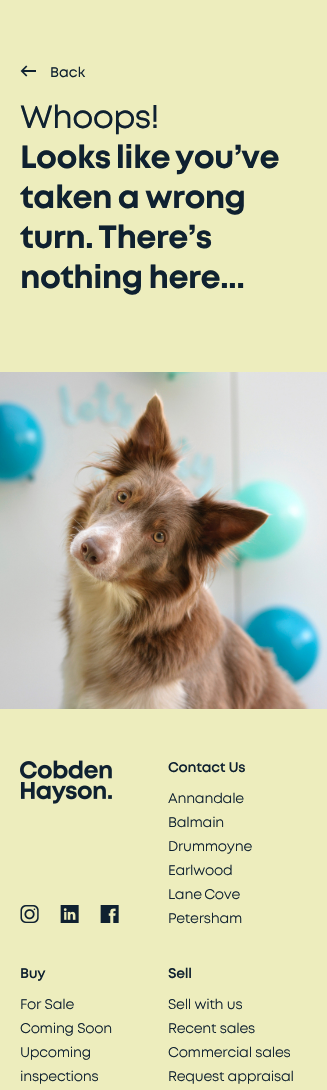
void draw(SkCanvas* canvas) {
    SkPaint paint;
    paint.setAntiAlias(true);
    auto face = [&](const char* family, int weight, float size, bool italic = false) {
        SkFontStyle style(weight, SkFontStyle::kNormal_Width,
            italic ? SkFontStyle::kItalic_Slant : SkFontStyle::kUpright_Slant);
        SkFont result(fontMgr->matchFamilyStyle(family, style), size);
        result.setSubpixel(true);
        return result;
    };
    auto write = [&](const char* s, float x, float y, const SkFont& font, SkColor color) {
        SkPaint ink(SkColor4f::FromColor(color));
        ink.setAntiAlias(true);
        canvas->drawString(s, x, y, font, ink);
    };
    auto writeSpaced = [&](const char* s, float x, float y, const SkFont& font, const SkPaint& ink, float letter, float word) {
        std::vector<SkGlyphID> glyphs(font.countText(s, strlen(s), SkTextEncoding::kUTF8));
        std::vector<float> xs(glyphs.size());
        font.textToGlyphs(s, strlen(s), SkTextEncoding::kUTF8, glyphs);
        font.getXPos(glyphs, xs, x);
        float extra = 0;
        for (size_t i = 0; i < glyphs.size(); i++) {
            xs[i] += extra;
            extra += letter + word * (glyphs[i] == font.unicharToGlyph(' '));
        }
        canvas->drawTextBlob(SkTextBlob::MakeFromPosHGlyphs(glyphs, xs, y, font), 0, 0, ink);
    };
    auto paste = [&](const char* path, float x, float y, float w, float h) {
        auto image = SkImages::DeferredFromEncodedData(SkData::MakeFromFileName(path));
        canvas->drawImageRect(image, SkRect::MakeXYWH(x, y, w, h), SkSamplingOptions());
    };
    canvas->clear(SkColorSetRGB(237, 237, 189));
    paste("pic1.png", 20, 65, 16, 12);
    auto kFont1 = face("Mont", 400, 14);
    write("Back", 50, 77, kFont1, SkColorSetRGB(15, 33, 48));
    auto kFont2 = face("Mont", 400, 32);
    paint.setColor(SkColorSetRGB(15, 33, 48));
    writeSpaced("Whoops!", 20, 128, kFont2, paint, -0.6f, 0);
    auto kFont3 = face("Mont", 700, 32);
    writeSpaced("Looks like you’ve", 20, 168, kFont3, paint, -0.6f, -2);
    writeSpaced("taken a wrong", 20, 208, kFont3, paint, -0.6f, -1);
    writeSpaced("turn. There’s", 20, 248, kFont3, paint, -0.6f, -2);
    writeSpaced("nothing here...", 20, 288, kFont3, paint, -0.6f, -1);
    paste("pic2.png", 0, 372, 327, 337);
    paste("pic3.png", 20, 760, 92, 44);
    paste("pic4.png", 20, 905, 19, 18);
    paste("pic5.png", 60, 905, 19, 18);
    paste("pic6.png", 100, 905, 19, 18);
    auto kFont4 = face("Mont", 600, 14);
    writeSpaced("Contact Us", 168, 772, kFont4, paint, -0.25f, 0);
    auto kFont5 = face("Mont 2", 400, 14);
    writeSpaced("Annandale", 168, 803, kFont5, paint, -0.25f, 0);
    writeSpaced("Balmain", 168, 827, kFont5, paint, -0.25f, 0);
    writeSpaced("Drummoyne", 168, 851, kFont5, paint, -0.25f, 0);
    writeSpaced("Earlwood", 168, 875, kFont5, paint, -0.25f, 0);
    writeSpaced("Lane Cove", 168, 899, kFont5, paint, -0.25f, -1);
    writeSpaced("Petersham", 168, 923, kFont5, paint, -0.25f, 0);
    writeSpaced("Buy", 20, 978, kFont4, paint, -0.25f, 0);
    writeSpaced("For Sale", 20, 1009, kFont5, paint, -0.25f, 0);
    writeSpaced("Coming Soon", 20, 1033, kFont5, paint, -0.25f, 0);
    writeSpaced("Upcoming", 20, 1057, kFont5, paint, -0.25f, 0);
    writeSpaced("inspections", 20, 1081, kFont5, paint, -0.25f, 0);
    writeSpaced("Sell", 168, 978, kFont4, paint, -0.25f, 0);
    writeSpaced("Sell with us", 168, 1009, kFont5, paint, -0.25f, 0);
    writeSpaced("Recent sales", 168, 1033, kFont5, paint, -0.25f, 0);
    writeSpaced("Commercial sales", 168, 1057, kFont5, paint, -0.25f, 0);
    writeSpaced("Request appraisal", 168, 1081, kFont5, paint, -0.25f, 0);
}
